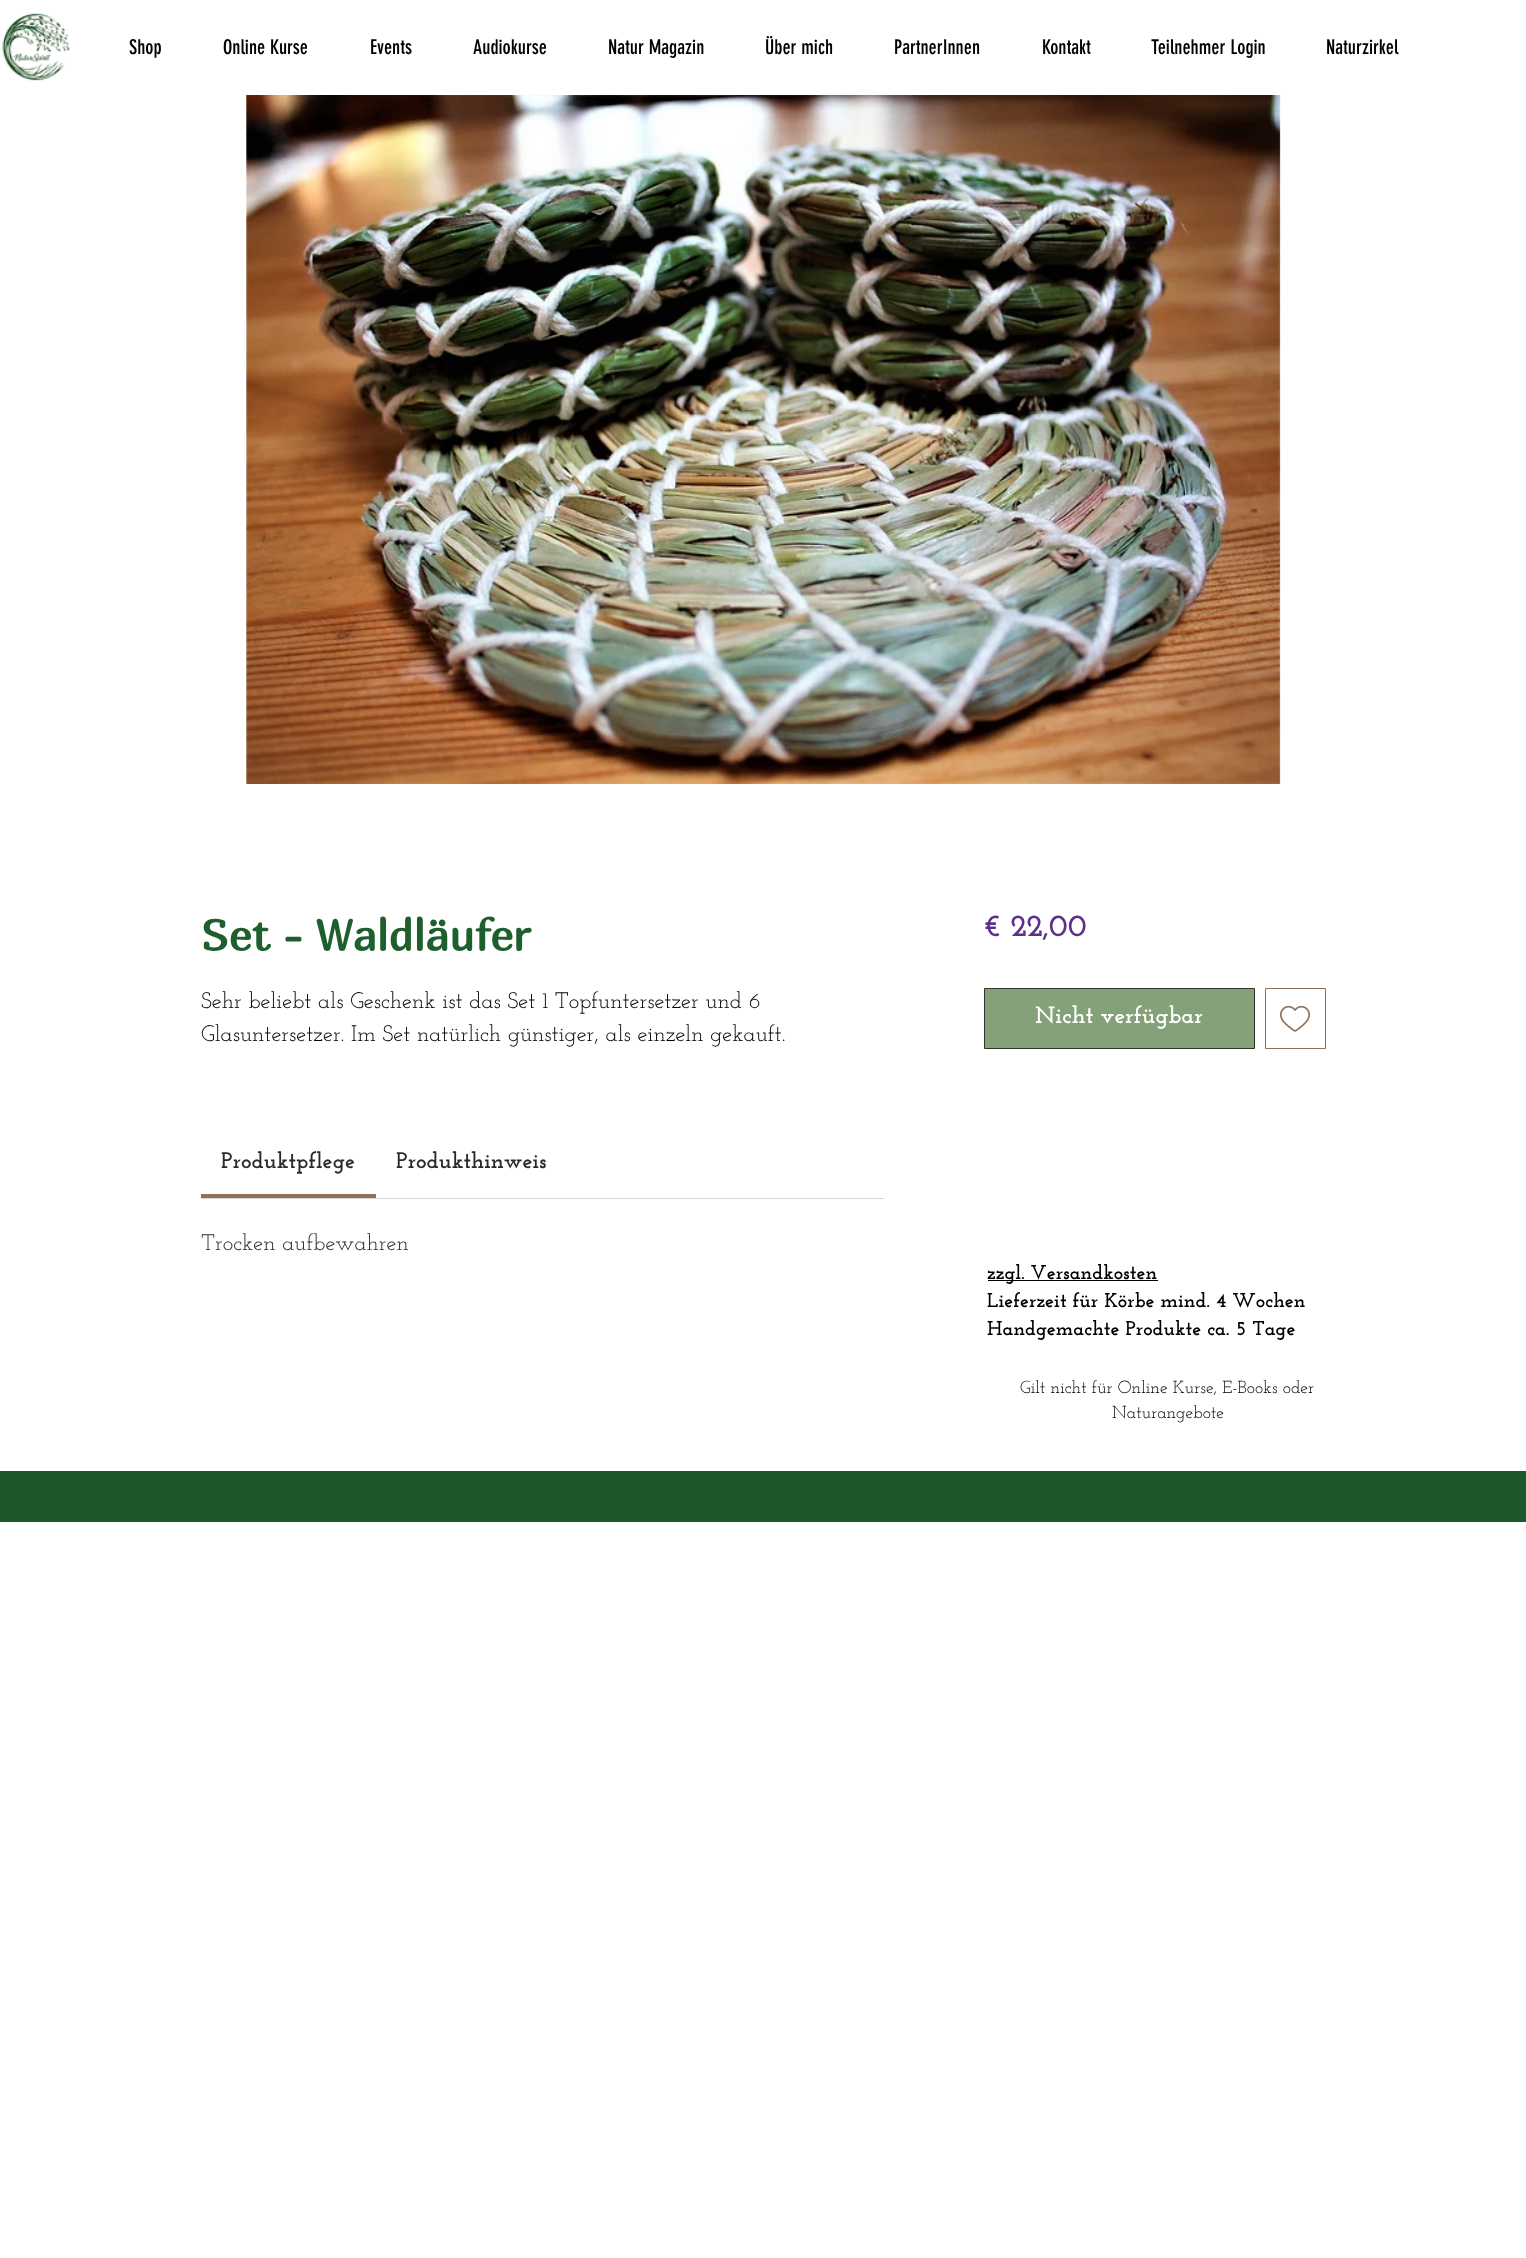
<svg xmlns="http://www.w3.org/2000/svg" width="1526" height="2258">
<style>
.a{font:20px 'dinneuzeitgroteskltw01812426';fill:#000}
.b{font:bold 43.75px Marmelad;fill:#1e5f2e}
.c{font:22.5px Josefin Slab;fill:#000}
.d{font:bold 22.5px Josefin Slab;fill:#2a2a2a}
.e{font:22.5px Josefin Slab;fill:#2a2a2a}
.f{font:bold 31px Josefin Slab;fill:#5d2f8a}
.g{font:bold 23.75px Josefin Slab;fill:#fff}
.h{font:bold 20px Josefin Slab;fill:#000}
.i{font:17.5px Josefin Slab;fill:#000}
</style>
<rect width="100%" height="100%" fill="#fff"/>
<image href="1.png" x="2" y="13" width="68" height="68"/>
<image href="2.png" x="246" y="95" width="1035" height="689"/>
<path fill="#d5d7d4" d="M201 1198h683v1H201z"/>
<path fill="#907057" d="M201 1194h175v4H201z"/>
<path fill="#85a17a" stroke="#2d3629" d="M984.5 988.5h270v60H984.5z"/>
<path fill="none" stroke="#907057" d="M1265.5 988.5h60v60H1265.5z"/>
<image href="3.png" x="1280" y="1005" width="30" height="27"/>
<path fill="#000" d="M988 1280h170v1H988z"/>
<path fill="#1d582b" d="M0 1471h1526v51H0z"/>
<text class="a" x="129" y="54">Shop</text>
<text class="a" x="223" y="54">Online Kurse</text>
<text class="a" x="370" y="54">Events</text>
<text class="a" x="473" y="54">Audiokurse</text>
<text class="a" x="608" y="54">Natur Magazin</text>
<text class="a" x="765" y="54">Über mich</text>
<text class="a" x="894" y="54">PartnerInnen</text>
<text class="a" x="1042" y="54">Kontakt</text>
<text class="a" x="1151" y="54">Teilnehmer Login</text>
<text class="a" x="1326" y="54">Naturzirkel</text>
<text class="b" x="201" y="951">Set - Waldläufer</text>
<text class="c" x="201" y="1008">Sehr beliebt als Geschenk ist das Set 1 Topfuntersetzer und 6</text>
<text class="c" x="201" y="1041">Glasuntersetzer. Im Set natürlich günstiger, als einzeln gekauft.</text>
<text class="d" x="221" y="1168">Produktpflege</text>
<text class="d" x="396" y="1168">Produkthinweis</text>
<text class="e" x="201" y="1250">Trocken aufbewahren</text>
<text class="f" x="984" y="936">€ 22,00</text>
<text class="g" x="1035" y="1023">Nicht verfügbar</text>
<text class="h" x="987" y="1279">zzgl. Versandkosten</text>
<text class="h" x="987" y="1307">Lieferzeit für Körbe mind. 4 Wochen</text>
<text class="h" x="987" y="1335">Handgemachte Produkte ca. 5 Tage</text>
<text class="i" x="1020" y="1393">Gilt nicht für Online Kurse, E-Books oder</text>
<text class="i" x="1112" y="1418">Naturangebote</text>
</svg>
